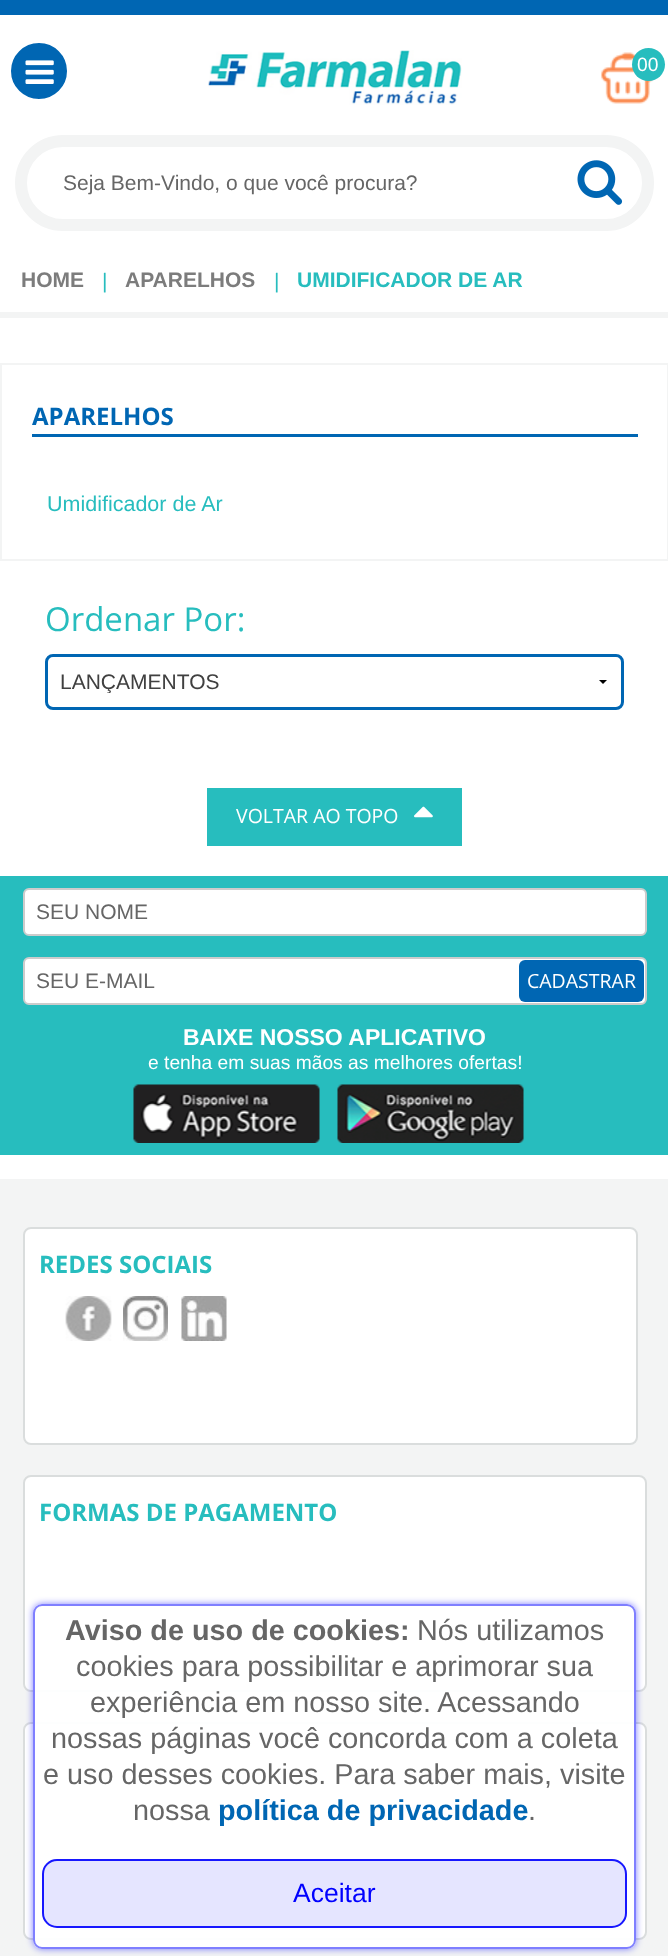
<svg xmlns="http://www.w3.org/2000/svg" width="668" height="1956">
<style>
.a{font:19.25px Liberation Sans;fill:#fff}
.b{font:21px Liberation Sans;fill:#666}
.c{font:bold 21px Liberation Sans;fill:#7c7c7c}
.d{font:21px Liberation Sans;fill:#27bdbe}
.e{font:bold 21px Liberation Sans;fill:#27bdbe}
.f{font:bold 24px Open Sans;fill:#0066b3}
.g{font:21.5px Liberation Sans;fill:#27bdbe}
.h{font:33px Open Sans;fill:#27bdbe}
.i{font:21px Liberation Sans;fill:#404040}
.j{font:19.5px Open Sans;fill:#fff}
.k{font:bold 23px Liberation Sans;fill:#fff}
.l{font:bold 24px Open Sans;fill:#27bdbe}
.m{font:bold 28.8px Liberation Sans;fill:#666}
.n{font:28.8px Liberation Sans;fill:#666}
.o{font:bold 28.8px Liberation Sans;fill:#0066b3}
.p{font:26.5px Liberation Sans;fill:#00f}
</style>
<defs>
<clipPath id="clip1"><path d="M585 680h36v5H585z"/></clipPath>
<clipPath id="clip2"><path d="M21 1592h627v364h-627zm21 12h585c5 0 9 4 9 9v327c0 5-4 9-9 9h-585c-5 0-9-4-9-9v-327c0-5 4-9 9-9z" clip-rule="evenodd"/></clipPath>
<clipPath id="clip3"><path d="M60 669h549v24H60z"/></clipPath>
</defs>
<rect width="100%" height="100%" fill="#fff"/>
<path fill="#0066b3" d="M0 0h668v15H0z"/>
<circle fill="#0066b3" stroke="#fff" stroke-width="5" cx="39" cy="71" r="30.5"/>
<image href="1.png" x="25" y="60" width="29" height="24"/>
<image href="2.png" x="208" y="50" width="254" height="55"/>
<image href="3.png" x="601" y="52" width="52" height="52"/>
<circle fill="#27bdbe" cx="648.5" cy="64.5" r="16.5"/>
<rect fill="none" stroke="#f3f4f4" stroke-width="12" x="21" y="141" width="627" height="84" rx="42"/>
<image href="4.png" x="577" y="160" width="46" height="45"/>
<path fill="#f3f4f4" d="M0 312h668v6H0z"/>
<path fill="none" stroke="#f3f4f4" stroke-width="2" d="M1 364h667v196H1z"/>
<path fill="#0066b3" d="M32 434h606v3H32z"/>
<g clip-path="url(#clip1)">
<path fill="#000" d="M607.5 679.5l-4.5 4.5l-4.5-4.5z"/>
</g>
<rect fill="none" stroke="#0066b3" stroke-width="3" x="46.5" y="655.5" width="576" height="53" rx="6.5"/>
<path fill="#27bdbe" d="M207 788h255v58H207z"/>
<image href="5.png" x="414" y="806" width="19" height="12"/>
<path fill="#27bdbe" d="M0 876h668v279H0z"/>
<rect fill="#fff" stroke="#ccc" stroke-width="2" x="24" y="889" width="622" height="46" rx="5"/>
<rect fill="#fff" stroke="#ccc" stroke-width="2" x="24" y="958" width="622" height="46" rx="5"/>
<rect fill="#0066b3" x="519" y="960" width="125" height="42" rx="6"/>
<image href="6.png" x="133" y="1084" width="187" height="59"/>
<image href="7.png" x="337" y="1084" width="187" height="59"/>
<path fill="#f3f4f4" d="M0 1179h668v777H0z"/>
<rect fill="#fff" stroke="#dadddd" stroke-width="2" x="24" y="1228" width="613" height="216" rx="7"/>
<image href="8.png" x="65" y="1296" width="47" height="45"/>
<image href="9.png" x="123" y="1296" width="45" height="45"/>
<image href="10.png" x="181" y="1296" width="46" height="45"/>
<rect fill="#fff" stroke="#dadddd" stroke-width="2" x="24" y="1476" width="622" height="215" rx="7"/>
<rect fill="#fff" stroke="#dadddd" stroke-width="2" x="24" y="1723" width="622" height="216" rx="7"/>
<g clip-path="url(#clip2)">
<rect fill="#0000ff80" filter="blur(3.5px)" x="33" y="1604" width="603" height="345" rx="9"/>
</g>
<rect fill="#fffffff2" x="33" y="1604" width="603" height="345" rx="9"/>
<rect fill="none" stroke="#0000ff80" stroke-width="2" x="34" y="1605" width="601" height="343" rx="8"/>
<rect fill="#0000ff1a" x="42" y="1859" width="585" height="69" rx="15"/>
<rect fill="none" stroke="#0000ffe6" stroke-width="2" x="43" y="1860" width="583" height="67" rx="14"/>
<text class="a" x="637" y="71">00</text>
<text class="b" x="63" y="190">Seja Bem-Vindo, o que você procura?</text>
<text class="c" x="21" y="287">HOME</text>
<text class="d" x="102" y="288">|</text>
<text class="c" x="125" y="287">APARELHOS</text>
<text class="d" x="274" y="288">|</text>
<text class="e" x="297" y="287">UMIDIFICADOR DE AR</text>
<text class="f" x="32" y="425">APARELHOS</text>
<text class="g" x="47" y="511">Umidificador de Ar</text>
<text class="h" x="45" y="631">Ordenar Por:</text>
<g clip-path="url(#clip3)">
<text class="i" x="60" y="689">LANÇAMENTOS</text>
</g>
<text class="j" x="236" y="823">VOLTAR AO TOPO</text>
<text class="b" x="36" y="919">SEU NOME</text>
<text class="b" x="36" y="988">SEU E-MAIL</text>
<text class="j" x="527" y="988">CADASTRAR</text>
<text class="k" x="183" y="1045">BAIXE NOSSO APLICATIVO</text>
<text class="a" x="148" y="1069">e tenha em suas mãos as melhores ofertas!</text>
<text class="l" x="39" y="1273">REDES SOCIAIS</text>
<text class="l" x="39" y="1521">FORMAS DE PAGAMENTO</text>
<text class="m" x="65" y="1640">Aviso de uso de cookies:</text>
<text class="n" x="417" y="1640">Nós utilizamos</text>
<text class="n" x="76" y="1676">cookies para possibilitar e aprimorar sua</text>
<text class="n" x="90" y="1712">experiência em nosso site. Acessando</text>
<text class="n" x="51" y="1748">nossas páginas você concorda com a coleta</text>
<text class="n" x="43" y="1784">e uso desses cookies. Para saber mais, visite</text>
<text class="n" x="133" y="1820">nossa</text>
<text class="o" x="218" y="1820">política de privacidade</text>
<text class="n" x="528" y="1820">.</text>
<text class="p" x="293" y="1902">Aceitar</text>
</svg>
